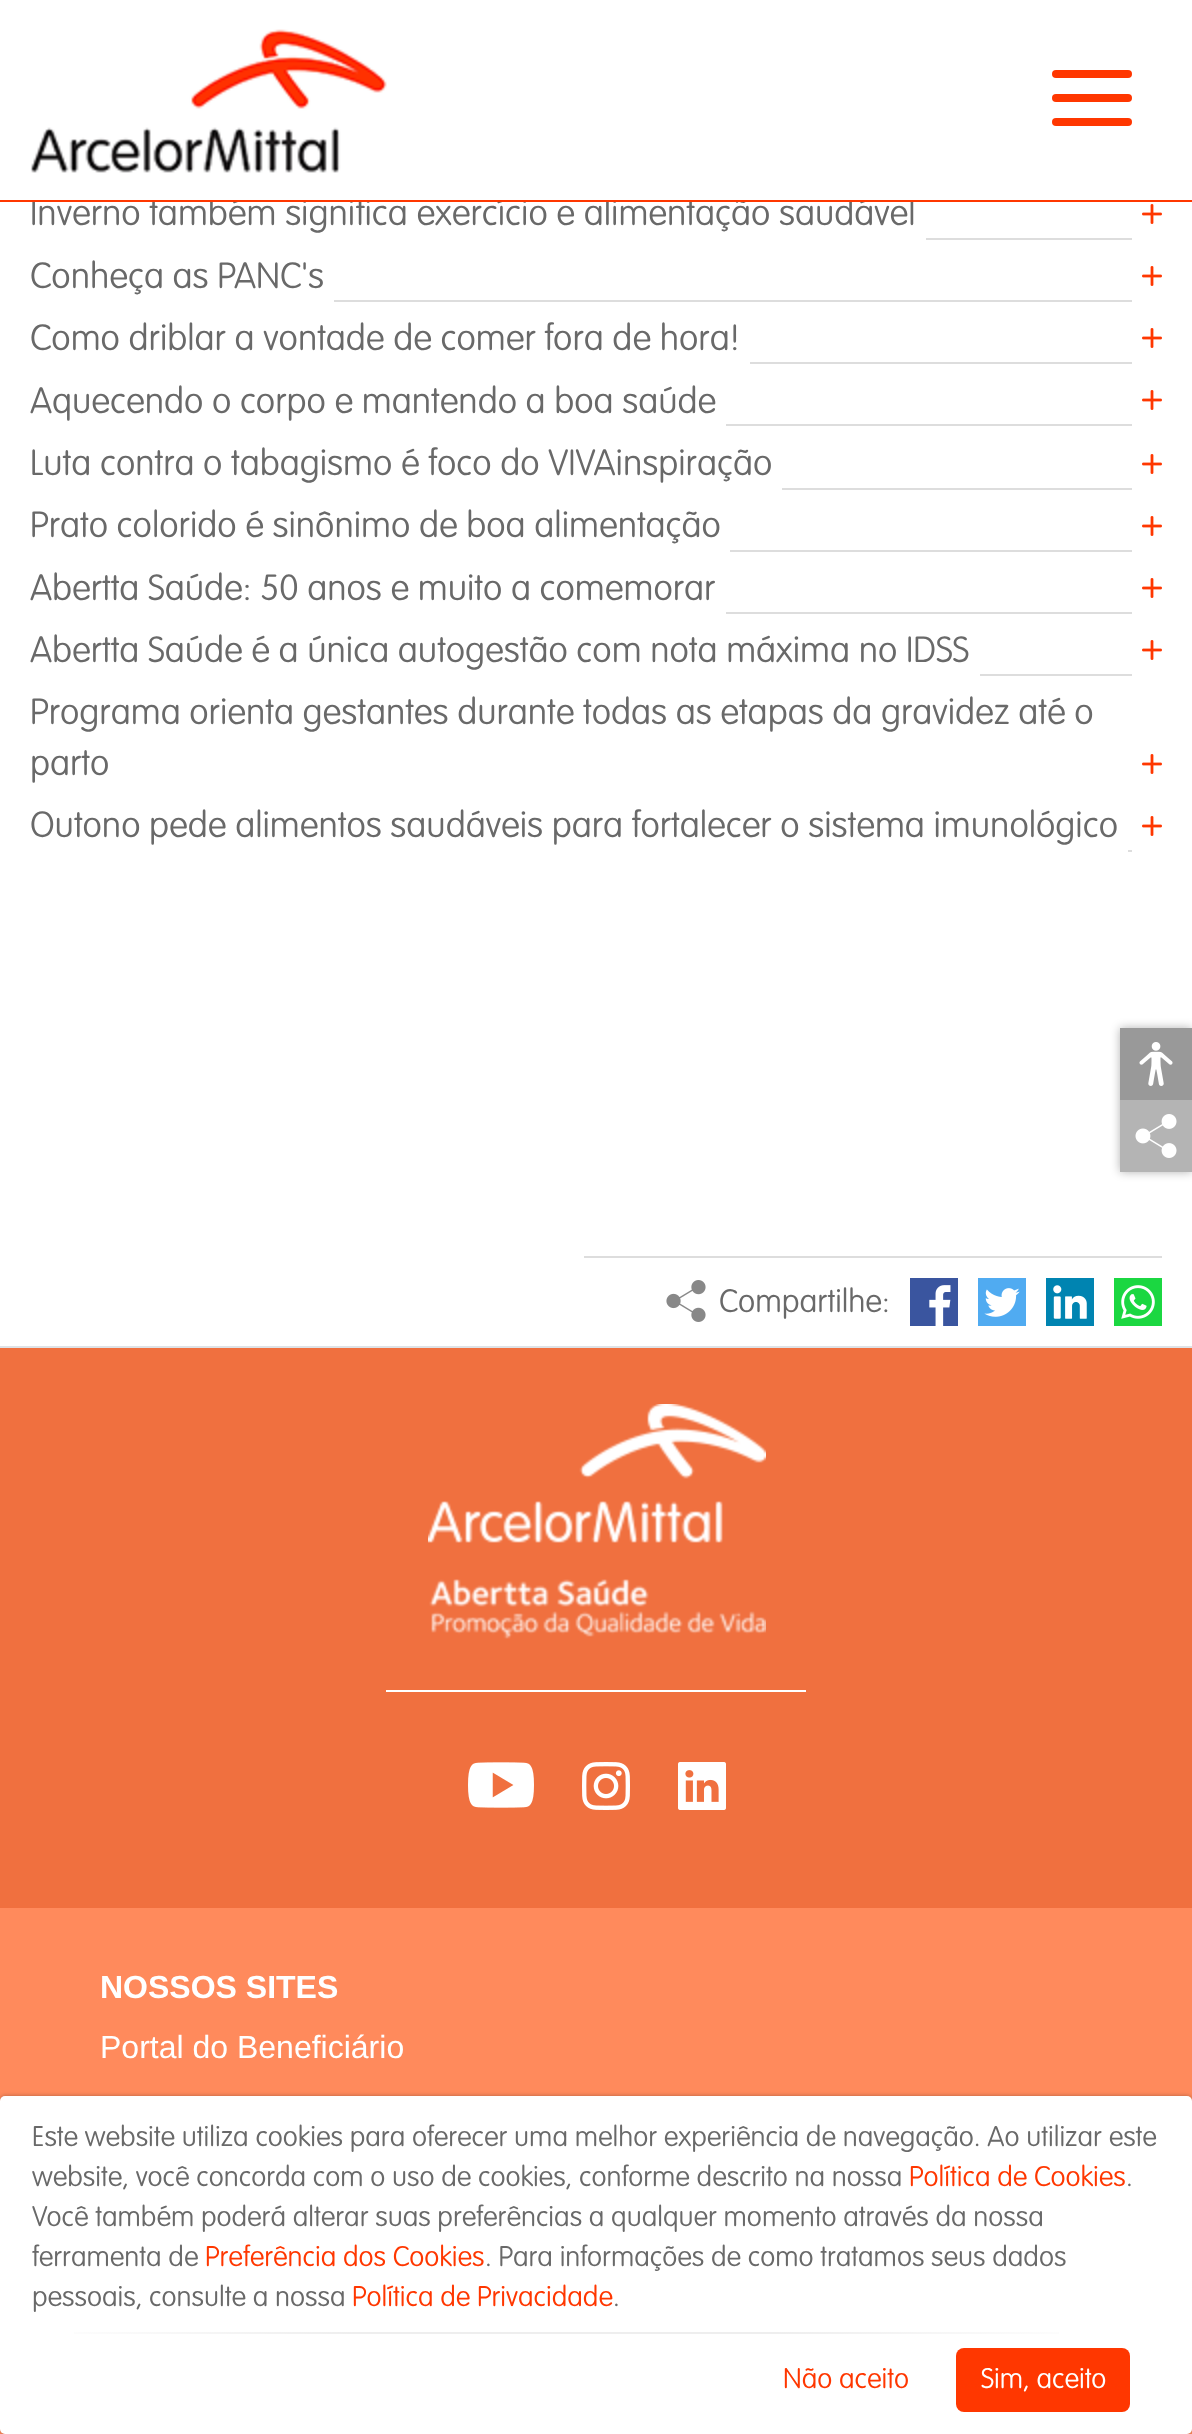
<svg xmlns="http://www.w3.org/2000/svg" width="1192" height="2434">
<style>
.a{font:100 36px 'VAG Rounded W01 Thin';fill:#696969}
.b{font:100 32px 'VAG Rounded W01 Thin';fill:#696969}
.c{font:bold 32px Liberation Sans;fill:#fff}
.d{font:32px Liberation Sans;fill:#fff}
.e{font:100 28px 'VAG Rounded W01 Thin';fill:#696969}
.f{font:100 28px 'VAG Rounded W01 Thin';fill:#ff3700}
.g{font:100 28px 'VAG Rounded W01 Thin';fill:#fff}
</style>
<defs>
<radialGradient id="g1" gradientUnits="userSpaceOnUse" cx="566" cy="2333" r="604"><stop offset="0.35" stop-color="#eee"/><stop offset="0.9" stop-color="#fff"/></radialGradient>
</defs>
<rect width="100%" height="100%" fill="#fff"/>
<image href="1.png" x="30" y="29" width="357" height="144"/>
<rect fill="#ff3700" x="1052" y="70" width="80" height="8" rx="4"/>
<rect fill="#ff3700" x="1052" y="94" width="80" height="8" rx="4"/>
<rect fill="#ff3700" x="1052" y="118" width="80" height="8" rx="4"/>
<path fill="#ddd" d="M926 238h206v2H926z"/>
<image href="2.png" x="1142" y="204" width="20" height="20"/>
<path fill="#ddd" d="M334 300h798v2H334z"/>
<image href="2.png" x="1142" y="266" width="20" height="20"/>
<path fill="#ddd" d="M750 362h382v2H750z"/>
<image href="2.png" x="1142" y="328" width="20" height="20"/>
<path fill="#ddd" d="M726 424h406v2H726z"/>
<image href="2.png" x="1142" y="390" width="20" height="20"/>
<path fill="#ddd" d="M782 488h350v2H782z"/>
<image href="2.png" x="1142" y="454" width="20" height="20"/>
<path fill="#ddd" d="M730 550h402v2H730z"/>
<image href="2.png" x="1142" y="516" width="20" height="20"/>
<path fill="#ddd" d="M726 612h406v2H726z"/>
<image href="2.png" x="1142" y="578" width="20" height="20"/>
<path fill="#ddd" d="M980 674h152v2H980z"/>
<image href="2.png" x="1142" y="640" width="20" height="20"/>
<image href="2.png" x="1142" y="754" width="20" height="20"/>
<path fill="#ddd" d="M1128 850h4v2H1128z"/>
<image href="2.png" x="1142" y="816" width="20" height="20"/>
<path fill="#0000004d" filter="blur(5px)" d="M1120 1028h72v144H1120z"/>
<path fill="#999" d="M1120 1028h72v72H1120z"/>
<image href="3.png" x="1139" y="1042" width="34" height="44"/>
<path fill="#b4b4b4" d="M1120 1100h72v72H1120z"/>
<image href="4.png" x="1135" y="1114" width="42" height="44"/>
<path fill="#ddd" d="M584 1256h578v2H584z"/>
<image href="5.png" x="666" y="1280" width="40" height="42"/>
<image href="6.png" x="910" y="1278" width="48" height="48"/>
<image href="7.png" x="978" y="1278" width="48" height="48"/>
<image href="8.png" x="1046" y="1278" width="48" height="48"/>
<image href="9.png" x="1114" y="1278" width="48" height="48"/>
<path fill="#dee2e6" d="M0 1346h1192v2H0z"/>
<path fill="#ff8a5c" d="M0 1908h1192v526H0z"/>
<path fill="#f0703f" d="M0 1348h1192v560H0z"/>
<image href="10.png" x="428" y="1404" width="338" height="235"/>
<path fill="#fff" d="M386 1690h420v2H386z"/>
<image href="11.png" x="468" y="1762" width="66" height="46"/>
<image href="12.png" x="582" y="1762" width="48" height="48"/>
<image href="13.png" x="678" y="1762" width="48" height="48"/>
<rect fill="#0000004d" filter="blur(2px)" y="2096" width="1192" height="338" rx="5"/>
<rect fill="#fff" y="2096" width="1192" height="338" rx="5"/>
<path fill="url(#g1)" d="M74 2332h985v2H74z"/>
<rect fill="#ff3700" x="956" y="2348" width="174" height="64" rx="8"/>
<text class="a" x="30" y="225">Inverno também significa exercício e alimentação saudável</text>
<path fill="#ff3700" d="M0 200h1192v2H0z"/>
<path fill="#fff" d="M32 197h882v3H32z"/>
<text class="a" x="30" y="288">Conheça as PANC's</text>
<text class="a" x="30" y="350">Como driblar a vontade de comer fora de hora!</text>
<text class="a" x="30" y="413">Aquecendo o corpo e mantendo a boa saúde</text>
<text class="a" x="30" y="475">Luta contra o tabagismo é foco do VIVAinspiração</text>
<text class="a" x="30" y="537">Prato colorido é sinônimo de boa alimentação</text>
<text class="a" x="30" y="600">Abertta Saúde: 50 anos e muito a comemorar</text>
<text class="a" x="30" y="662">Abertta Saúde é a única autogestão com nota máxima no IDSS</text>
<text class="a" x="30" y="724">Programa orienta gestantes durante todas as etapas da gravidez até o</text>
<text class="a" x="30" y="775">parto</text>
<text class="a" x="30" y="837">Outono pede alimentos saudáveis para fortalecer o sistema imunológico</text>
<text class="b" x="719" y="1312">Compartilhe:</text>
<text class="c" x="100" y="1998">NOSSOS SITES</text>
<text class="d" x="100" y="2058">Portal do Beneficiário</text>
<text class="e" x="32" y="2146">Este website utiliza cookies para oferecer uma melhor experiência de navegação. Ao utilizar este</text>
<text class="e" x="32" y="2186">website, você concorda com o uso de cookies, conforme descrito na nossa</text>
<text class="f" x="909" y="2186">Política de Cookies</text>
<text class="e" x="1126" y="2186">.</text>
<text class="e" x="32" y="2226">Você também poderá alterar suas preferências a qualquer momento através da nossa</text>
<text class="e" x="32" y="2266">ferramenta de</text>
<text class="f" x="205" y="2266">Preferência dos Cookies</text>
<text class="e" x="485" y="2266">. Para informações de como tratamos seus dados</text>
<text class="e" x="32" y="2306">pessoais, consulte a nossa</text>
<text class="f" x="352" y="2306">Política de Privacidade</text>
<text class="e" x="613" y="2306">.</text>
<text class="f" x="783" y="2388">Não aceito</text>
<text class="g" x="981" y="2388">Sim, aceito</text>
</svg>
